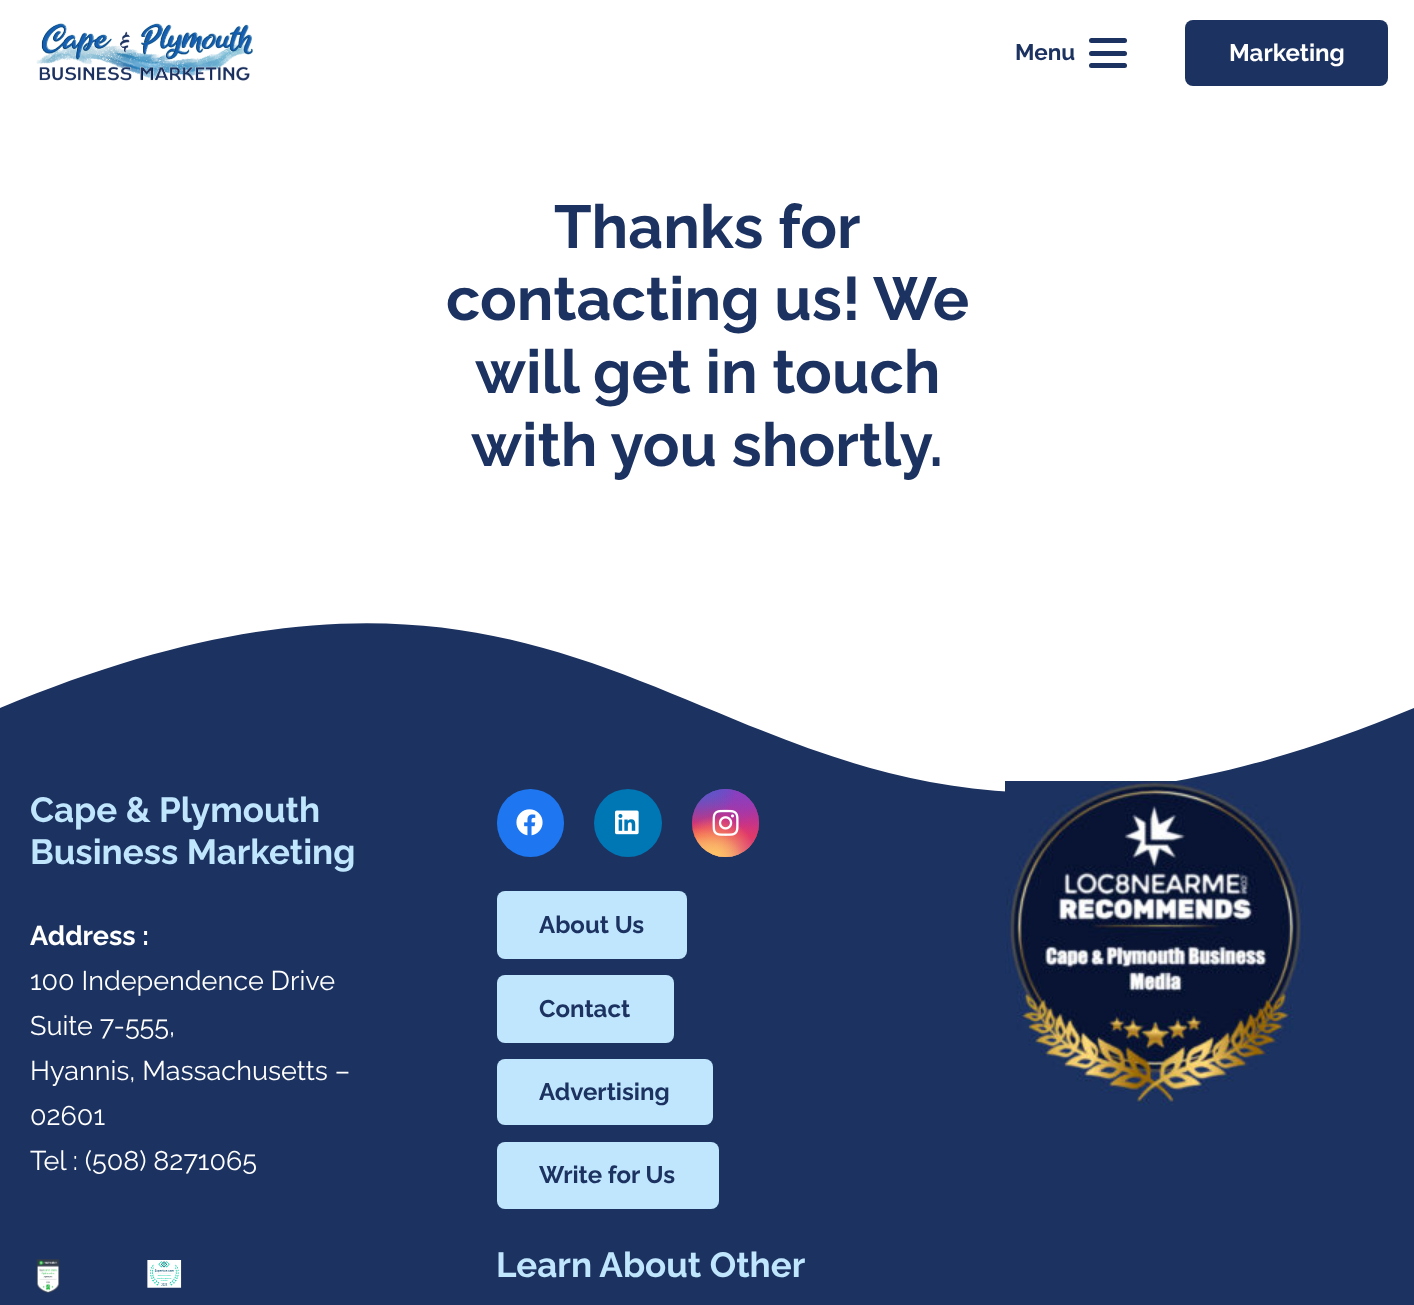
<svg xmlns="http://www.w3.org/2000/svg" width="1414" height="1305">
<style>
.a{font:bold 22.5px Raleway;fill:#1c3260}
.b{font:bold 24px Raleway;fill:#fff}
.c{font:bold 60.75px Raleway;fill:#1c3260}
.d{font:bold 35px Raleway;fill:#c0e6fd}
.e{font:bold 27px Raleway;fill:#fff}
.f{font:27px Raleway;fill:#fff}
.g{font:bold 24px Raleway;fill:#1c3260}
</style>
<defs>
<linearGradient id="g1" gradientUnits="userSpaceOnUse" x1="725" y1="789" x2="725" y2="857"><stop offset="0" stop-color="#6559ca"/><stop offset="0.3" stop-color="#bc318f"/><stop offset="0.5" stop-color="#e42e66"/><stop offset="0.7" stop-color="#fa5332"/><stop offset="1" stop-color="#ffdc80"/></linearGradient>
<radialGradient id="g2" gradientUnits="userSpaceOnUse" cx="759" cy="857" r="95"><stop offset="0" stop-color="#d9317a"/><stop offset="1" stop-color="#d9317a" stop-opacity="0"/></radialGradient>
<radialGradient id="g3" gradientUnits="userSpaceOnUse" cx="0" cy="0" r="1" gradientTransform="matrix(57 0 0 115 732 776)"><stop offset="0" stop-color="#893dc2"/><stop offset="0.5" stop-color="#893dc2" stop-opacity="0"/></radialGradient>
<radialGradient id="g4" gradientUnits="userSpaceOnUse" cx="759" cy="789" r="95"><stop offset="0" stop-color="#893dc2"/><stop offset="0.5" stop-color="#893dc2" stop-opacity="0"/></radialGradient>
<radialGradient id="g5" gradientUnits="userSpaceOnUse" cx="0" cy="0" r="1" gradientTransform="matrix(76 0 0 143 705 755)"><stop offset="0" stop-color="#5258cf"/><stop offset="0.5" stop-color="#5258cf" stop-opacity="0"/></radialGradient>
<radialGradient id="g6" gradientUnits="userSpaceOnUse" cx="0" cy="0" r="1" gradientTransform="matrix(95 0 0 119 692 772)"><stop offset="0" stop-color="#5258cf"/><stop offset="0.5" stop-color="#5258cf" stop-opacity="0"/></radialGradient>
<radialGradient id="g7" gradientUnits="userSpaceOnUse" cx="698" cy="884" r="112"><stop offset="0" stop-color="#feda7e"/><stop offset="0.5" stop-color="#feda7e" stop-opacity="0"/></radialGradient>
<radialGradient id="g8" gradientUnits="userSpaceOnUse" cx="715" cy="857" r="81"><stop offset="0" stop-color="#fec564"/><stop offset="0.5" stop-color="#fec564" stop-opacity="0"/></radialGradient>
</defs>
<rect width="100%" height="100%" fill="#fff"/>
<image href="1.png" x="36" y="23" width="218" height="58"/>
<rect fill="#1c3260" x="1089" y="51" width="38" height="5" rx="2.5"/>
<rect fill="#1c3260" x="1089" y="38" width="38" height="5" rx="2.5"/>
<rect fill="#1c3260" x="1089" y="63" width="38" height="5" rx="2.5"/>
<rect fill="#1c3260" x="1185" y="20" width="203" height="66" rx="8"/>
<path fill="#1c3260" d="M0 623h1414v682H0z"/>
<path fill="#fff" d="M1414 708c-707 294-707-294-1414 0v-98h1414z"/>
<image href="2.png" x="36" y="1259" width="24" height="34"/>
<image href="3.png" x="147" y="1260" width="35" height="28"/>
<rect fill="#1e77f0" x="497" y="789" width="67" height="68" rx="33.5"/>
<image href="4.png" x="516" y="809" width="27" height="27"/>
<circle fill="#0077b5" cx="628" cy="823" r="34"/>
<image href="5.png" x="615" y="810" width="24" height="25"/>
<rect fill="url(#g1)" x="692" y="789" width="67" height="68" rx="33.5"/>
<rect fill="url(#g2)" x="692" y="789" width="67" height="68" rx="33.5"/>
<rect fill="url(#g3)" x="692" y="789" width="67" height="68" rx="33.5"/>
<rect fill="url(#g4)" x="692" y="789" width="67" height="68" rx="33.5"/>
<rect fill="url(#g5)" x="692" y="789" width="67" height="68" rx="33.5"/>
<rect fill="url(#g6)" x="692" y="789" width="67" height="68" rx="33.5"/>
<rect fill="url(#g7)" x="692" y="789" width="67" height="68" rx="33.5"/>
<rect fill="url(#g8)" x="692" y="789" width="67" height="68" rx="33.5"/>
<image href="6.png" x="712" y="809" width="27" height="27"/>
<rect fill="#c0e6fd" x="497" y="891" width="190" height="68" rx="8"/>
<rect fill="#c0e6fd" x="497" y="975" width="177" height="68" rx="8"/>
<rect fill="#c0e6fd" x="497" y="1059" width="216" height="66" rx="8"/>
<rect fill="#c0e6fd" x="497" y="1142" width="222" height="67" rx="8"/>
<image href="7.png" x="1005" y="781" width="300" height="324"/>
<text class="a" x="1015" y="60">Menu</text>
<text class="b" x="1229" y="61">Marketing</text>
<text class="c" x="554" y="248">Thanks for</text>
<text class="c" x="446" y="320">contacting us! We</text>
<text class="c" x="475" y="393">will get in touch</text>
<text class="c" x="471" y="466">with you shortly.</text>
<text class="d" x="30" y="822">Cape &amp; Plymouth</text>
<text class="d" x="30" y="864">Business Marketing</text>
<text class="e" x="30" y="945">Address :</text>
<text class="f" x="30" y="990">100 Independence Drive</text>
<text class="f" x="30" y="1035">Suite 7-555,</text>
<text class="f" x="30" y="1080">Hyannis, Massachusetts –</text>
<text class="f" x="30" y="1125">02601</text>
<text class="f" x="30" y="1170">Tel : (508) 8271065</text>
<text class="g" x="539" y="933">About Us</text>
<text class="g" x="539" y="1017">Contact</text>
<text class="g" x="539" y="1100">Advertising</text>
<text class="g" x="539" y="1183">Write for Us</text>
<text class="d" x="496" y="1277">Learn About Other</text>
</svg>
